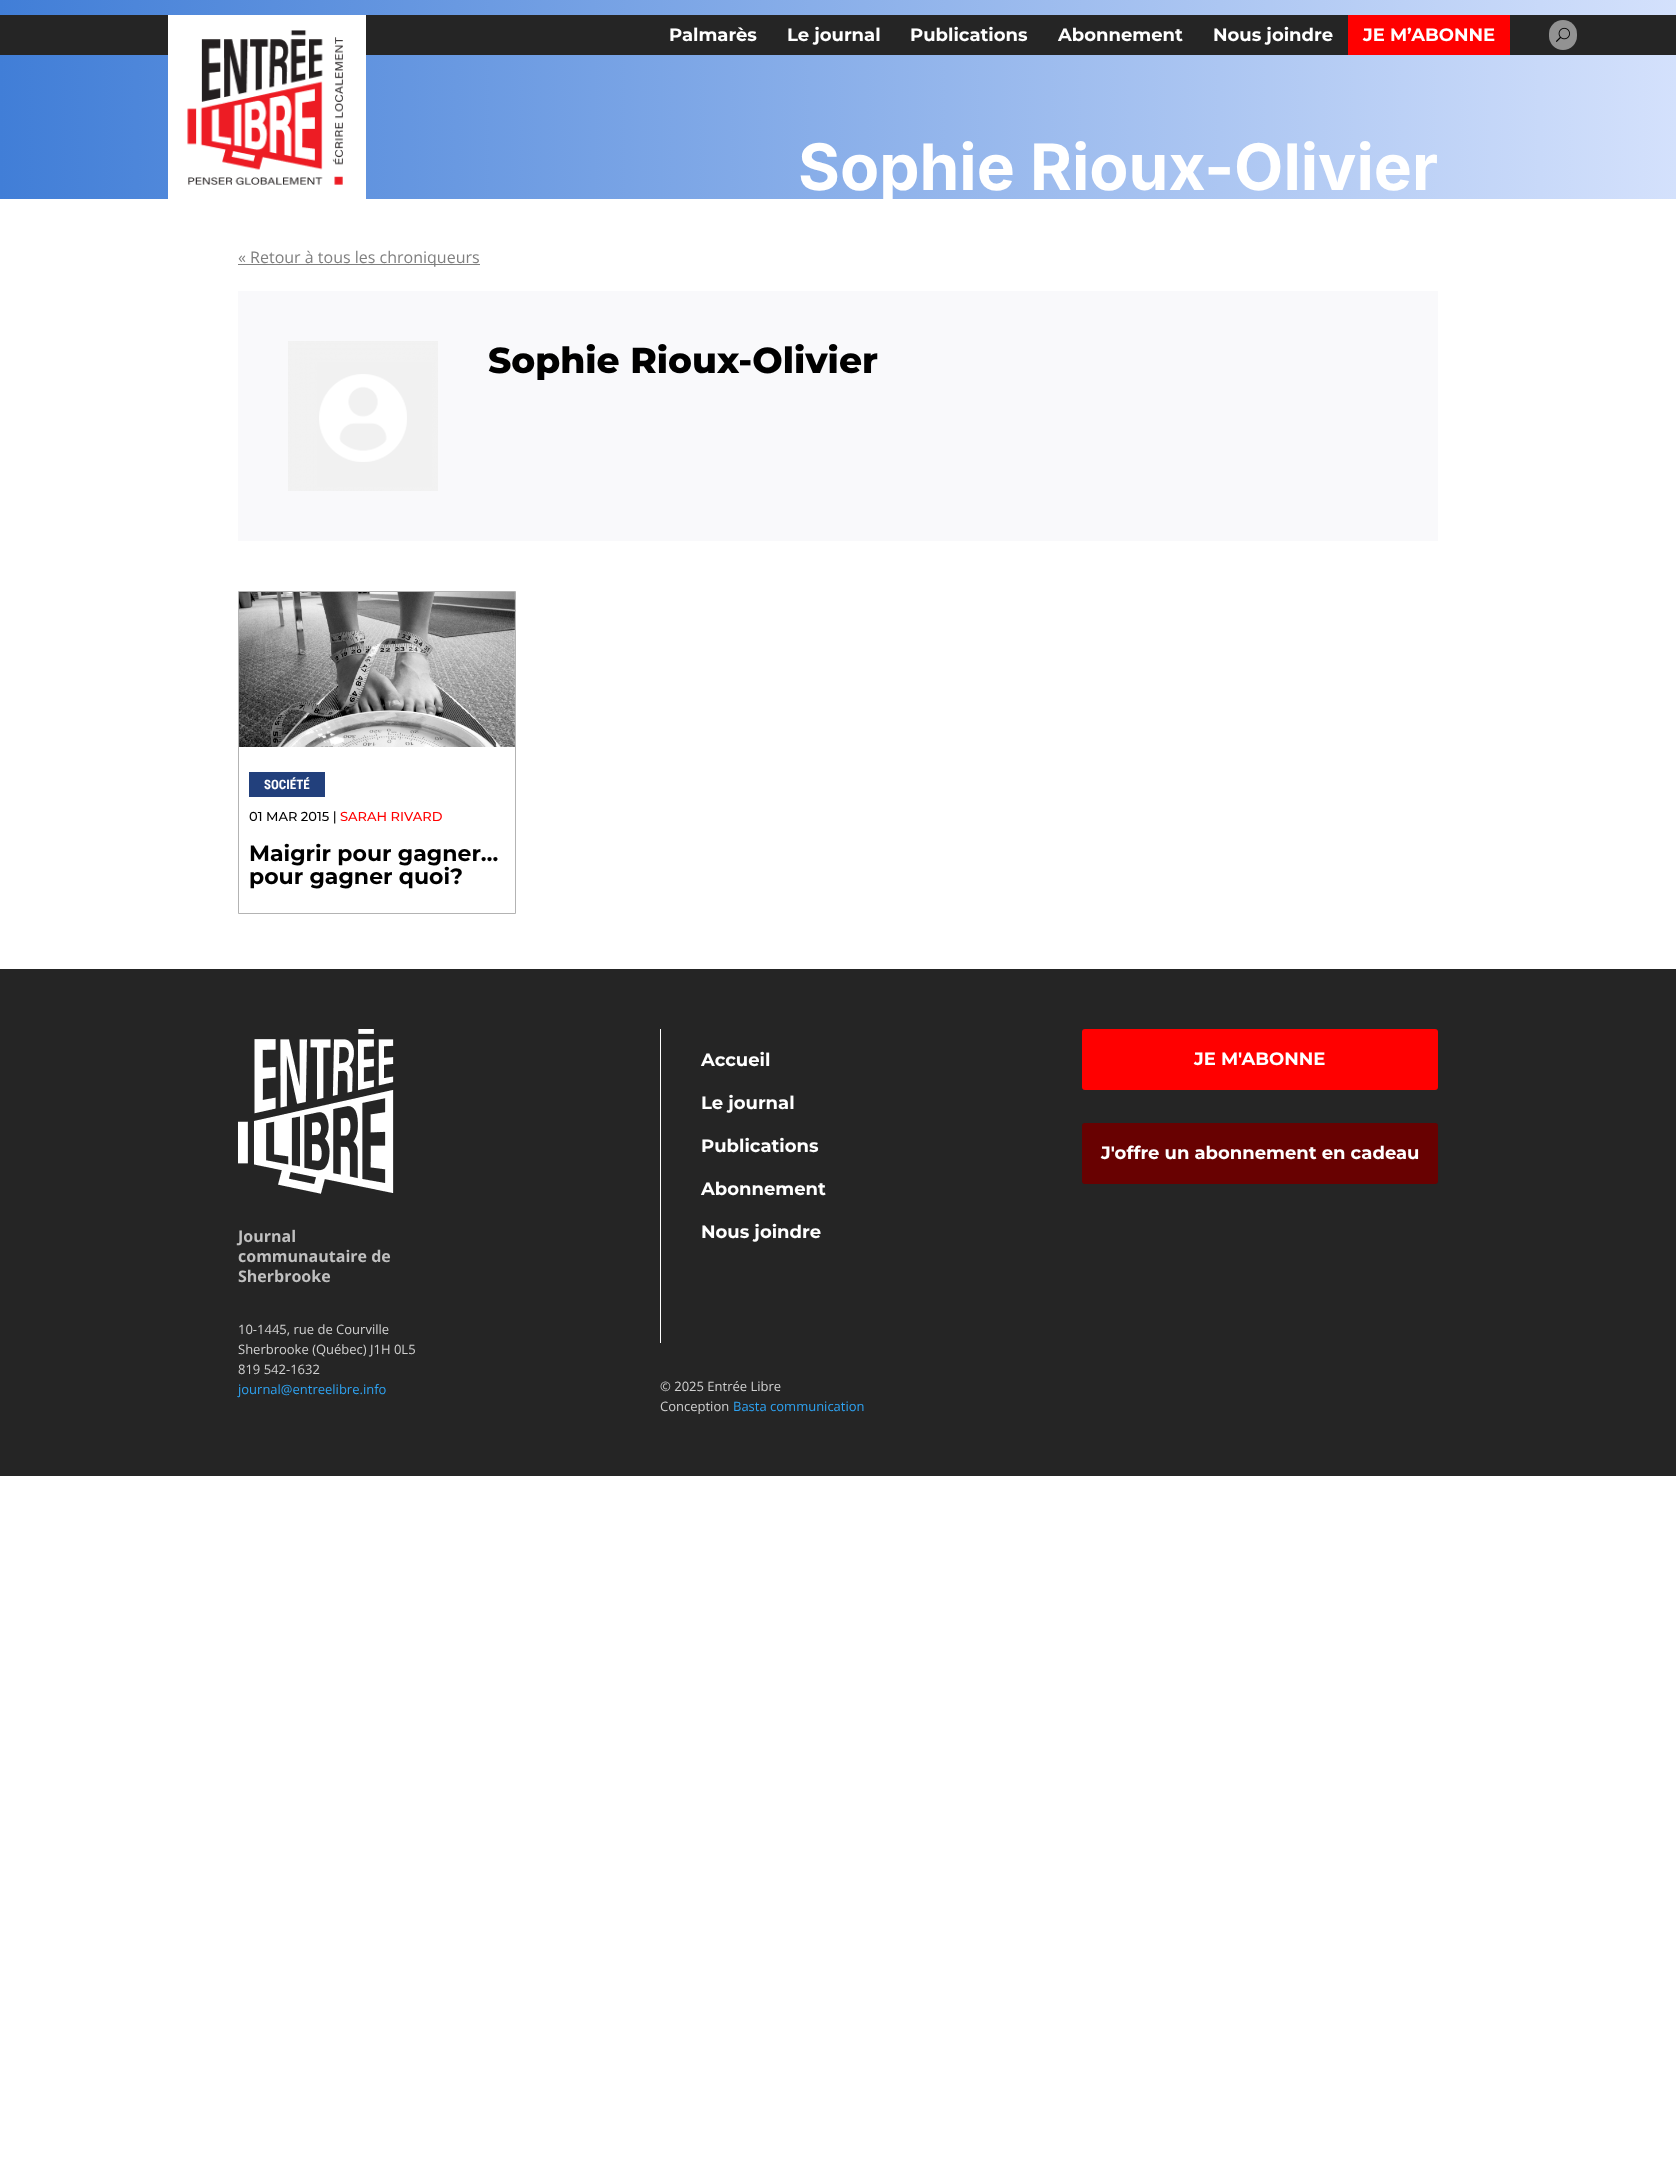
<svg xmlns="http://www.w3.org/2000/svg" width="1676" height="2174">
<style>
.a{font:bold 18px Montserrat;fill:#fff}
.b{font:bold 64px Inter;fill:#fff}
.c{font:16px Open Sans;fill:#7f7f7f}
.d{font:800 36px Montserrat;fill:#000}
.e{font:bold 13px Roboto Condensed;fill:#fff}
.f{font:500 13px Montserrat;fill:#000}
.g{font:500 13px Montserrat;fill:#f00}
.h{font:bold 22px Montserrat;fill:#000}
.i{font:13px Open Sans;fill:#d0d0d0}
.j{font:13px Open Sans;fill:#2ea3f2}
.k{font:bold 16px Open Sans;fill:#c0c0c0}
</style>
<defs>
<linearGradient id="g1" gradientUnits="userSpaceOnUse" x1="0" y1="100" x2="1676" y2="99"><stop offset="0" stop-color="#417ed7"/><stop offset="1" stop-color="#d4e1fc"/></linearGradient>
</defs>
<rect width="100%" height="100%" fill="#fff"/>
<path fill="url(#g1)" d="M0 0h1676v199H0z"/>
<path fill="#252525" d="M0 15h1676v40H0z"/>
<image href="1.png" x="168" y="15" width="198" height="184"/>
<path fill="#f00" d="M1348 15h162v40H1348z"/>
<rect fill="#929292" x="1549" y="20" width="28" height="30" rx="14"/>
<image href="2.png" x="1556" y="27" width="14" height="15"/>
<path fill="#808080" d="M238 264h242v1H238z"/>
<path fill="#f9f9fb" d="M238 291h1200v250H238z"/>
<image href="3.png" x="288" y="341" width="150" height="150"/>
<path fill="none" stroke="#b3b3b3" d="M238.5 591.5h277v322H238.5z"/>
<image href="4.png" x="239" y="592" width="276" height="155"/>
<path fill="#22407c" d="M249 772h76v25H249z"/>
<path fill="#252525" d="M0 969h1676v507H0z"/>
<path fill="#fff" d="M660 1029h1v314H660z"/>
<rect fill="#f00" x="1082" y="1029" width="356" height="61" rx="3"/>
<rect fill="#680101" x="1082" y="1123" width="356" height="61" rx="3"/>
<image href="5.png" x="238" y="1029" width="156" height="165"/>
<text class="a" x="669" y="41">Palmarès</text>
<text class="a" x="787" y="41">Le journal</text>
<text class="a" x="910" y="41">Publications</text>
<text class="a" x="1058" y="41">Abonnement</text>
<text class="a" x="1213" y="41">Nous joindre</text>
<text class="a" x="1363" y="41">JE M’ABONNE</text>
<text class="b" x="798" y="190">Sophie Rioux-Olivier</text>
<text class="c" x="238" y="263">« Retour à tous les chroniqueurs</text>
<text class="d" x="488" y="373">Sophie Rioux-Olivier</text>
<text class="e" x="264" y="789">SOCIÉTÉ</text>
<text class="f" x="249" y="821">01 MAR 2015 |</text>
<text class="g" x="340" y="821">SARAH RIVARD</text>
<text class="h" x="249" y="861">Maigrir pour gagner…</text>
<text class="h" x="249" y="884">pour gagner quoi?</text>
<text class="a" x="701" y="1066">Accueil</text>
<text class="a" x="701" y="1109">Le journal</text>
<text class="a" x="701" y="1152">Publications</text>
<text class="a" x="701" y="1195">Abonnement</text>
<text class="a" x="701" y="1238">Nous joindre</text>
<text class="i" x="660" y="1391">© 2025 Entrée Libre</text>
<text class="i" x="660" y="1411">Conception</text>
<text class="j" x="733" y="1411">Basta communication</text>
<text class="a" x="1194" y="1065">JE M'ABONNE</text>
<text class="a" x="1101" y="1159">J'offre un abonnement en cadeau</text>
<text class="k" x="238" y="1242">Journal</text>
<text class="k" x="238" y="1262">communautaire de</text>
<text class="k" x="238" y="1282">Sherbrooke</text>
<text class="i" x="238" y="1334">10-1445, rue de Courville</text>
<text class="i" x="238" y="1354">Sherbrooke (Québec) J1H 0L5</text>
<text class="i" x="238" y="1374">819 542-1632</text>
<text class="j" x="238" y="1394">journal@entreelibre.info</text>
</svg>
